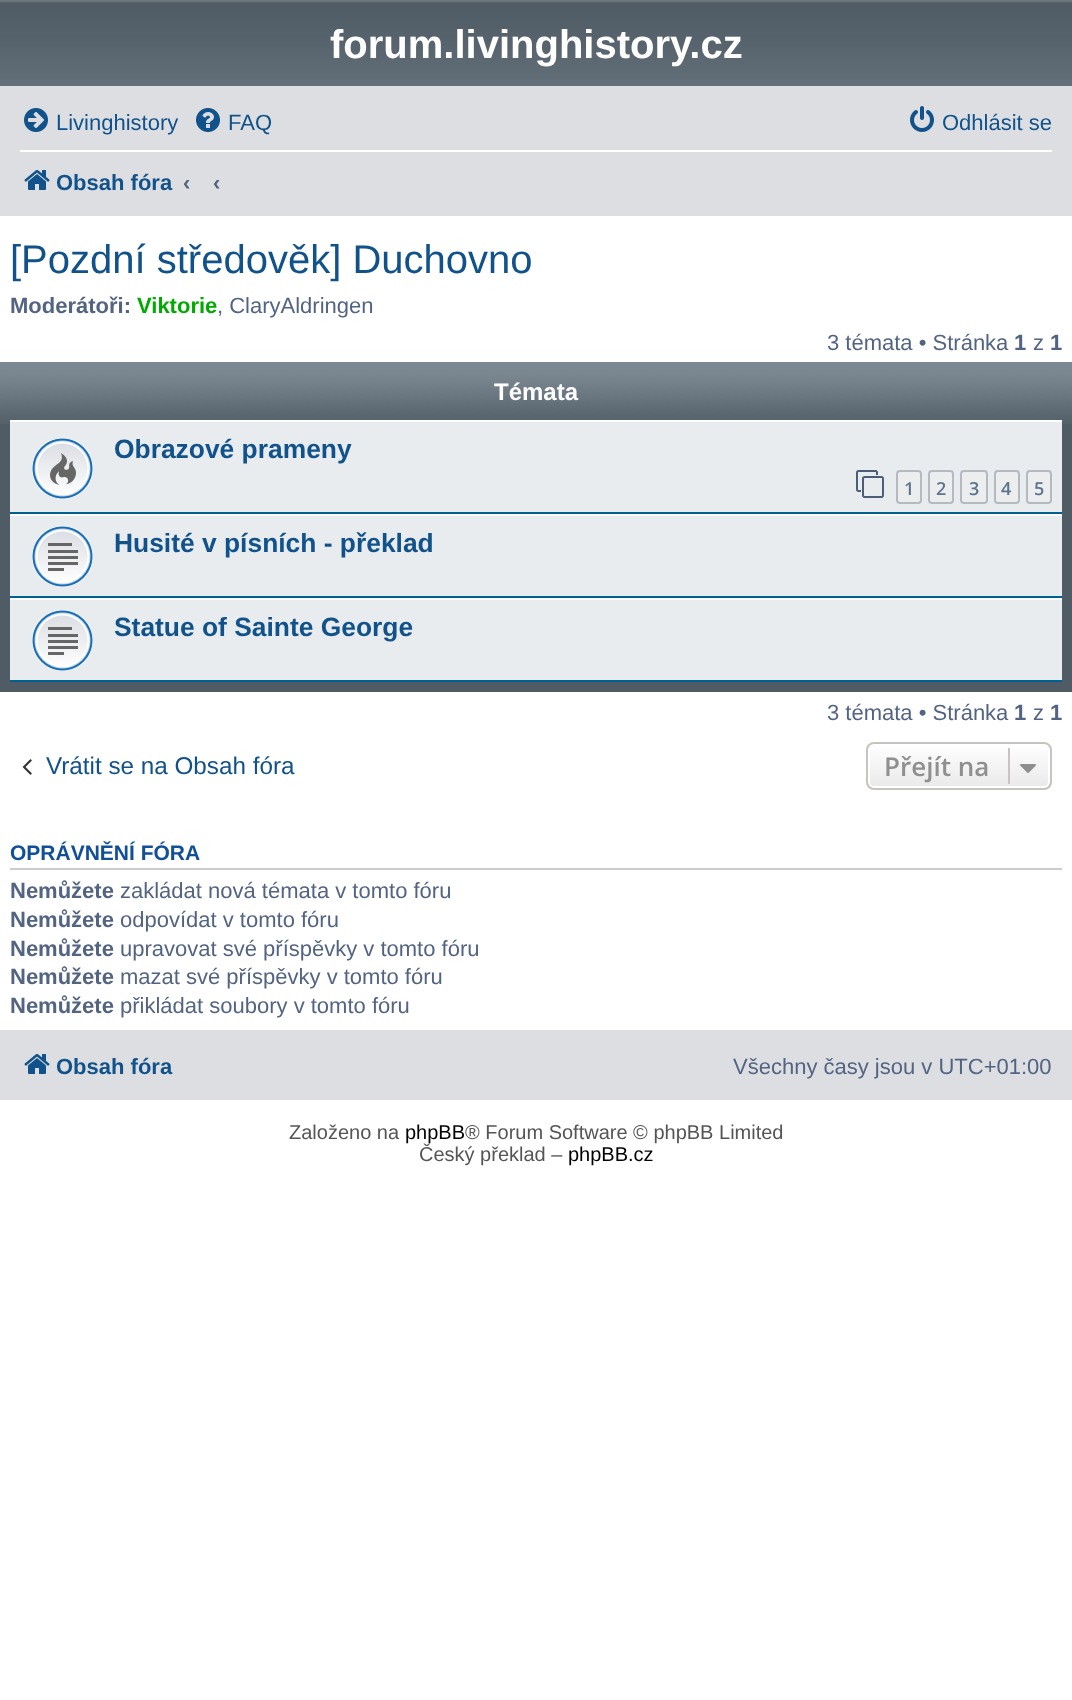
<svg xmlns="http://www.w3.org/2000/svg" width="1072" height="1700">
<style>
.a{font:bold 40px Liberation Sans;fill:#fff}
.b{font:22px Liberation Sans;fill:#105289}
.c{font:bold 22px Liberation Sans;fill:#105289}
.d{font:bold 22px Liberation Sans;fill:#536482}
.e{font:40px Liberation Sans;fill:#105289}
.f{font:bold 22px Liberation Sans;fill:#0a0}
.g{font:22px Liberation Sans;fill:#536482}
.h{font:bold 24px Liberation Sans;fill:#fff}
.i{font:bold 26.4px Liberation Sans;fill:#105289}
.j{font:600 18px Open Sans;fill:#5c758c}
.k{font:24.25px Liberation Sans;fill:#105289}
.l{font:600 26px Open Sans;fill:#8f8f8f}
.m{font:bold 21px Liberation Sans;fill:#115098}
.n{font:20px Liberation Sans;fill:#555}
.o{font:20px Liberation Sans;fill:#000}
</style>
<defs>
<clipPath id="clip1"><rect x="866" y="742" width="186" height="48" rx="8"/></clipPath>
<linearGradient id="g1" gradientUnits="userSpaceOnUse" x1="959" y1="744" x2="959" y2="788"><stop offset="0" stop-color="#fff"/><stop offset="1" stop-color="#e9e9e9"/></linearGradient>
</defs>
<rect width="100%" height="100%" fill="#fff"/>
<image href="1.png" x="0" y="0" width="1072" height="86"/>
<path fill="#dcdee2" d="M0 86h1072v130H0z"/>
<image href="2.png" x="24" y="108" width="24" height="24"/>
<image href="3.png" x="196" y="108" width="24" height="24"/>
<image href="4.png" x="910" y="106" width="24" height="26"/>
<path fill="#fff" d="M20 150h1032v2H20z"/>
<image href="5.png" x="24" y="170" width="26" height="20"/>
<path fill="#505c65" d="M0 424h1072v268H0z"/>
<image href="6.png" x="0" y="362" width="1072" height="62"/>
<path fill="#e8ecee" d="M10 422h1052v90H10z"/>
<path fill="#fff" d="M10 420h1052v2H10z"/>
<path fill="#00608f" d="M10 512h1052v2H10z"/>
<image href="7.png" x="32" y="438" width="61" height="61"/>
<image href="8.png" x="856" y="470" width="28" height="28"/>
<rect fill="#ecedee" stroke="#b4bac0" stroke-width="2" x="897" y="471" width="24" height="32" rx="3"/>
<rect fill="#ecedee" stroke="#b4bac0" stroke-width="2" x="929" y="471" width="24" height="32" rx="3"/>
<rect fill="#ecedee" stroke="#b4bac0" stroke-width="2" x="961" y="471" width="26" height="32" rx="3"/>
<rect fill="#ecedee" stroke="#b4bac0" stroke-width="2" x="995" y="471" width="24" height="32" rx="3"/>
<rect fill="#ecedee" stroke="#b4bac0" stroke-width="2" x="1027" y="471" width="24" height="32" rx="3"/>
<path fill="#e8ecee" d="M10 516h1052v80H10z"/>
<path fill="#fff" d="M10 514h1052v2H10z"/>
<path fill="#00608f" d="M10 596h1052v2H10z"/>
<image href="9.png" x="32" y="526" width="61" height="61"/>
<path fill="#e8ecee" d="M10 600h1052v80H10z"/>
<path fill="#fff" d="M10 598h1052v2H10z"/>
<path fill="#00608f" d="M10 680h1052v2H10z"/>
<image href="9.png" x="32" y="610" width="61" height="61"/>
<image href="10.png" x="22" y="759" width="10" height="16"/>
<g clip-path="url(#clip1)">
<path fill="url(#g1)" d="M866 744h186v44H866z"/>
</g>
<rect fill="none" stroke="#fff" stroke-width="2" x="869" y="745" width="180" height="42" rx="5"/>
<rect fill="none" stroke="#c7c3bf" stroke-width="2" x="867" y="743" width="184" height="46" rx="7"/>
<path fill="#c7c3bf" d="M1008 748h2v36H1008z"/>
<image href="11.png" x="1020" y="764" width="16" height="9"/>
<path fill="#ccc" d="M10 868h1052v2H10z"/>
<path fill="#dcdee2" d="M0 1030h1072v70H0z"/>
<image href="5.png" x="24" y="1054" width="26" height="20"/>
<text class="a" x="330" y="58">forum.livinghistory.cz</text>
<text class="b" x="56" y="130">Livinghistory</text>
<text class="b" x="228" y="130">FAQ</text>
<text class="b" x="942" y="130">Odhlásit se</text>
<text class="c" x="56" y="190">Obsah fóra</text>
<text class="d" x="183" y="190">‹</text>
<text class="d" x="213" y="190">‹</text>
<text class="e" x="10" y="273">[Pozdní středověk] Duchovno</text>
<text class="d" x="10" y="313">Moderátoři:</text>
<text class="f" x="137" y="313">Viktorie</text>
<text class="g" x="217" y="313">, ClaryAldringen</text>
<text class="g" x="827" y="350">3 témata • Stránka</text>
<text class="d" x="1014" y="350">1</text>
<text class="g" x="1033" y="350">z</text>
<text class="d" x="1050" y="350">1</text>
<text class="h" x="494" y="400">Témata</text>
<text class="i" x="114" y="458">Obrazové prameny</text>
<text class="j" x="904" y="495">1</text>
<text class="j" x="936" y="495">2</text>
<text class="j" x="969" y="495">3</text>
<text class="j" x="1001" y="495">4</text>
<text class="j" x="1034" y="495">5</text>
<text class="i" x="114" y="552">Husité v písních - překlad</text>
<text class="i" x="114" y="636">Statue of Sainte George</text>
<text class="g" x="827" y="720">3 témata • Stránka</text>
<text class="d" x="1014" y="720">1</text>
<text class="g" x="1033" y="720">z</text>
<text class="d" x="1050" y="720">1</text>
<text class="k" x="46" y="774">Vrátit se na Obsah fóra</text>
<text class="l" x="884" y="776">Přejít na</text>
<text class="m" x="10" y="860">OPRÁVNĚNÍ FÓRA</text>
<text class="d" x="10" y="898">Nemůžete</text>
<text class="g" x="120" y="898">zakládat nová témata v tomto fóru</text>
<text class="d" x="10" y="927">Nemůžete</text>
<text class="g" x="120" y="927">odpovídat v tomto fóru</text>
<text class="d" x="10" y="956">Nemůžete</text>
<text class="g" x="120" y="956">upravovat své příspěvky v tomto fóru</text>
<text class="d" x="10" y="984">Nemůžete</text>
<text class="g" x="120" y="984">mazat své příspěvky v tomto fóru</text>
<text class="d" x="10" y="1013">Nemůžete</text>
<text class="g" x="120" y="1013">přikládat soubory v tomto fóru</text>
<text class="c" x="56" y="1074">Obsah fóra</text>
<text class="g" x="733" y="1074">Všechny časy jsou v UTC+01:00</text>
<text class="n" x="289" y="1139">Založeno na</text>
<text class="o" x="405" y="1139">phpBB</text>
<text class="n" x="465" y="1139">® Forum Software © phpBB Limited</text>
<text class="n" x="419" y="1161">Český překlad –</text>
<text class="o" x="568" y="1161">phpBB.cz</text>
</svg>
